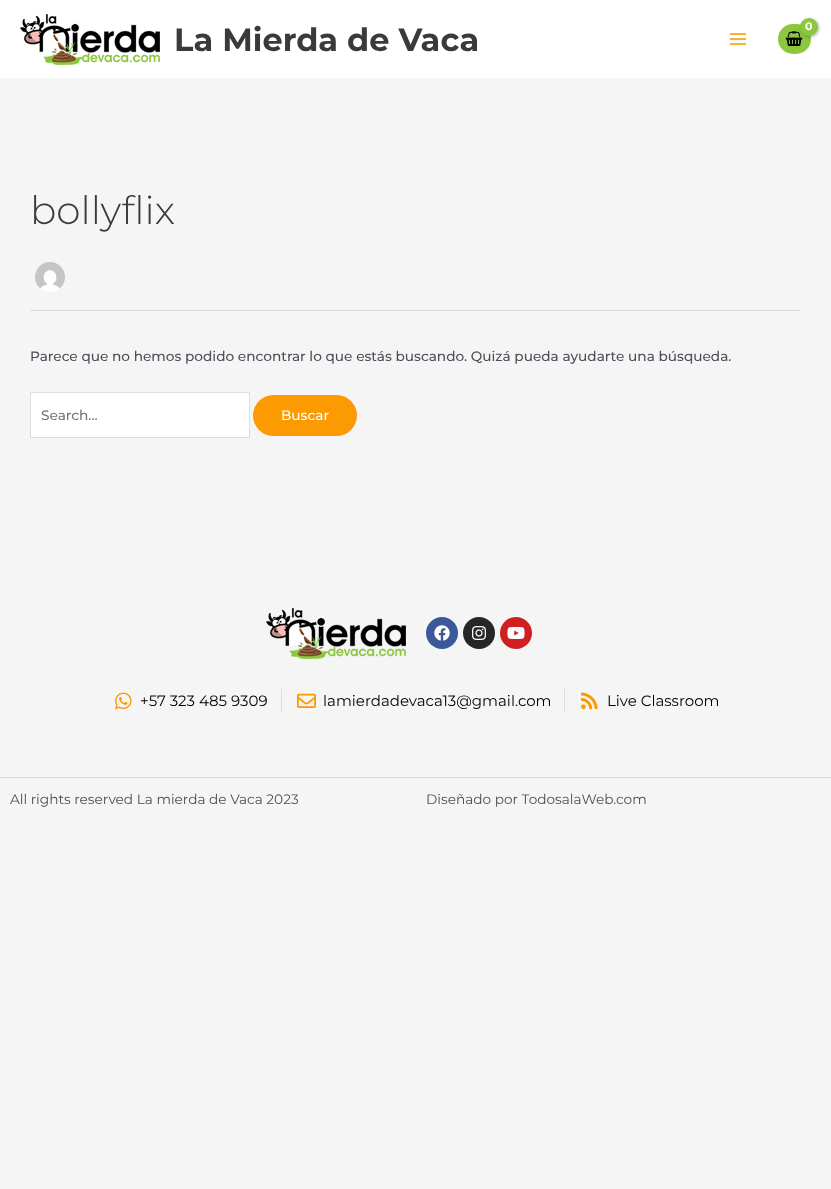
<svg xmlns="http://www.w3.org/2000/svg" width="831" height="1189">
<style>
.a{font:bold 32px Montserrat;fill:#3a3a3a}
.b{font:bold 11px Montserrat;fill:#fff}
.c{font:300 39px Montserrat;fill:#3a3a3a}
.d{font:500 13.68px Montserrat;fill:#4b4f58}
.e{font:500 13.68px Montserrat;fill:#757575}
.f{font:500 13.68px Montserrat;fill:#fff}
.g{font:15px Montserrat;fill:#000}
.h{font:13.68px Montserrat;fill:#4b4f58}
</style>
<rect width="100%" height="100%" fill="#f5f5f5"/>
<path fill="#fff" d="M0 0h831v78H0z"/>
<image href="1.png" x="20" y="14" width="140" height="51"/>
<rect fill="#8cc73f" x="778" y="24" width="33" height="30" rx="15"/>
<image href="2.png" x="785" y="31" width="18" height="15"/>
<rect fill="#0000004d" filter="blur(1.5px)" x="801" y="19" width="18" height="18" rx="9"/>
<circle fill="#8cc73f" cx="809" cy="27" r="9"/>
<image href="3.png" x="729" y="33" width="18" height="12"/>
<path fill="#ddd" d="M30 310h771v1H30z"/>
<image href="4.png" x="35" y="262" width="30" height="30"/>
<path fill="#fff" stroke="#ddd" d="M30.5 392.5h219v45H30.5z"/>
<rect fill="#fc9a01" x="253" y="395" width="104" height="41" rx="20.5"/>
<image href="5.png" x="266" y="608" width="140" height="51"/>
<circle fill="#3b5998" cx="442" cy="633" r="16"/>
<image href="6.png" x="434" y="625" width="16" height="16"/>
<circle fill="#262626" cx="479" cy="633" r="16"/>
<image href="7.png" x="472" y="626" width="14" height="14"/>
<circle fill="#cd201f" cx="516" cy="633" r="16"/>
<image href="8.png" x="507" y="627" width="18" height="12"/>
<image href="9.png" x="115" y="692" width="17" height="18"/>
<path fill="#ddd" d="M281 689h1v23H281z"/>
<image href="10.png" x="297" y="693" width="19" height="15"/>
<path fill="#ddd" d="M564 689h1v23H564z"/>
<image href="11.png" x="581" y="692" width="17" height="18"/>
<path fill="#dbdbdb" d="M0 777h831v1H0z"/>
<text class="a" x="174" y="51">La Mierda de Vaca</text>
<text class="b" x="805" y="30">0</text>
<text class="c" x="30" y="224">bollyflix</text>
<text class="d" x="30" y="361">Parece que no hemos podido encontrar lo que estás buscando. Quizá pueda ayudarte una búsqueda.</text>
<text class="e" x="41" y="420">Search...</text>
<text class="f" x="281" y="420">Buscar</text>
<text class="g" x="140" y="706">+57 323 485 9309</text>
<text class="g" x="323" y="706">lamierdadevaca13@gmail.com</text>
<text class="g" x="607" y="706">Live Classroom</text>
<text class="h" x="10" y="804">All rights reserved La mierda de Vaca 2023</text>
<text class="h" x="426" y="804">Diseñado por TodosalaWeb.com</text>
</svg>
